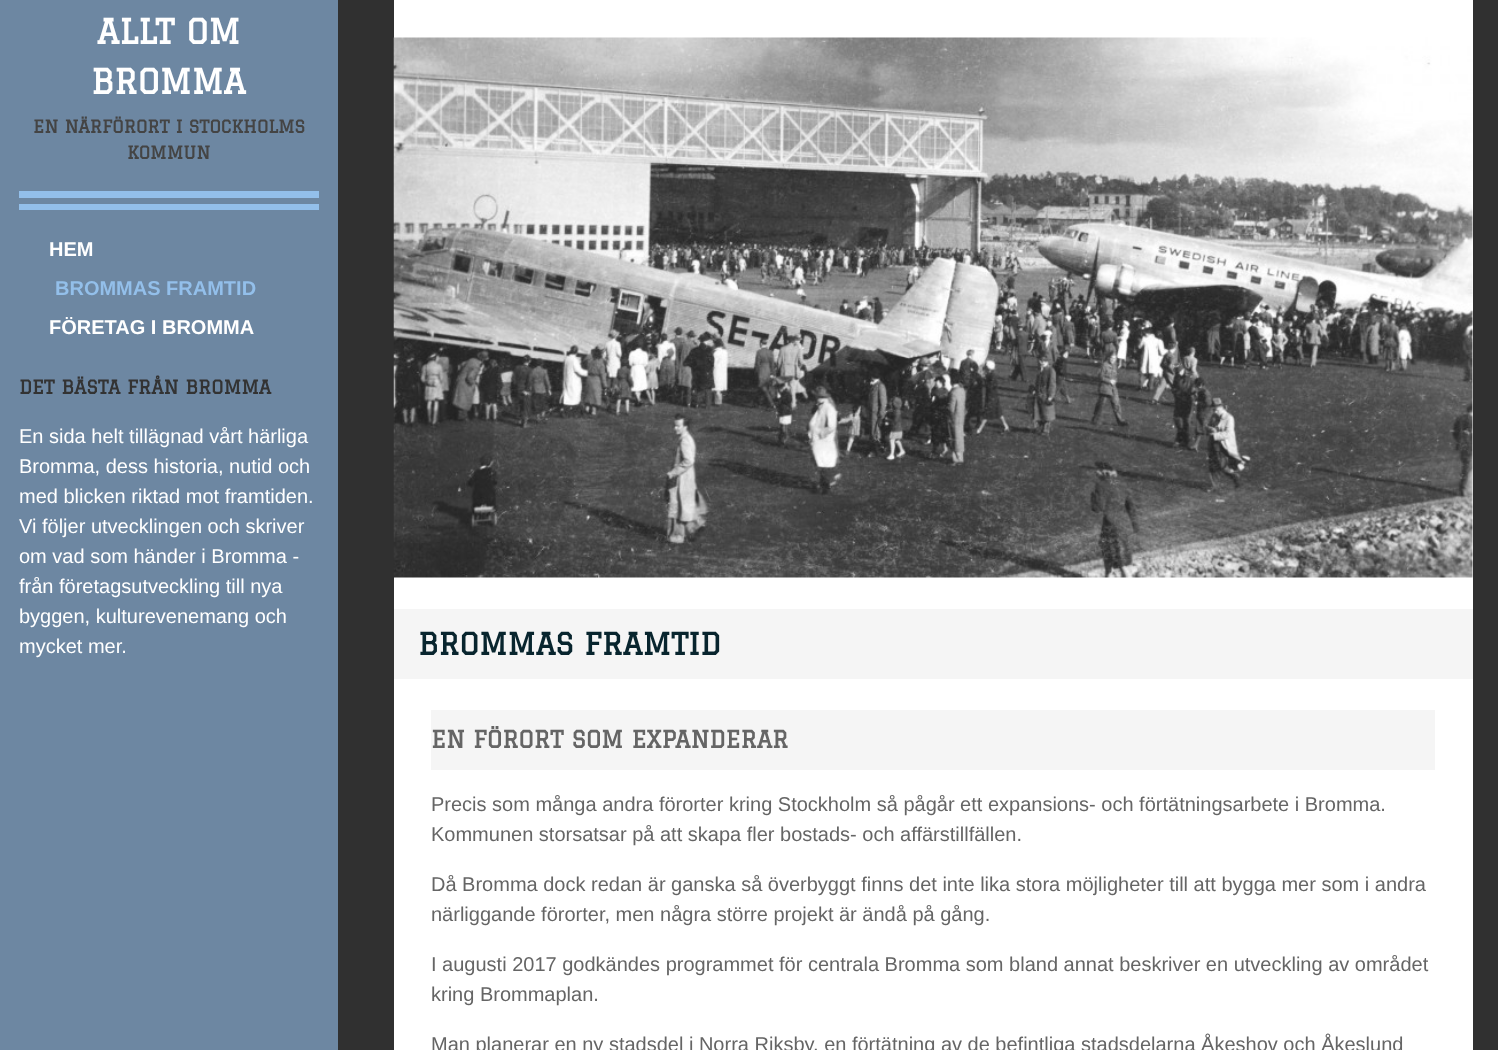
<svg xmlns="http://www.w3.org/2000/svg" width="1498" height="1050">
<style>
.a{font:bold 33.75px Graduate;fill:#fff}
.b{font:bold 17.5px Graduate;fill:#444}
.c{font:bold 20px Liberation Sans;fill:#fff}
.d{font:bold 20px Liberation Sans;fill:#93bfea}
.e{font:bold 18.75px Graduate;fill:#333}
.f{font:20px Liberation Sans;fill:#fff}
.g{font:bold 30px Graduate;fill:#08252e}
.h{font:bold 23.4px Graduate;fill:#656565}
.i{font:20px Liberation Sans;fill:#656565}
</style>
<rect width="100%" height="100%" fill="#303030"/>
<path fill="#6d87a2" d="M0 0h338v1050H0z"/>
<path fill="#93bfea" d="M19 191h300v7H19z"/>
<path fill="#93bfea" d="M19 204h300v6H19z"/>
<path fill="#fff" d="M394 0h1079v1050H394z"/>
<image href="1.png" x="393" y="37" width="1080" height="541"/>
<path fill="#f5f5f5" d="M394 609h1079v70H394z"/>
<path fill="#f5f5f5" d="M431 710h1004v60H431z"/>
<text class="a" x="97" y="44">ALLT OM</text>
<text class="a" x="91" y="94">BROMMA</text>
<text class="b" x="33" y="133">EN NÄRFÖRORT I STOCKHOLMS</text>
<text class="b" x="127" y="159">KOMMUN</text>
<text class="c" x="49" y="256">HEM</text>
<text class="d" x="55" y="295">BROMMAS FRAMTID</text>
<text class="c" x="49" y="334">FÖRETAG I BROMMA</text>
<text class="e" x="19" y="394">DET BÄSTA FRÅN BROMMA</text>
<text class="f" x="19" y="443">En sida helt tillägnad vårt härliga</text>
<text class="f" x="19" y="473">Bromma, dess historia, nutid och</text>
<text class="f" x="19" y="503">med blicken riktad mot framtiden.</text>
<text class="f" x="19" y="533">Vi följer utvecklingen och skriver</text>
<text class="f" x="19" y="563">om vad som händer i Bromma -</text>
<text class="f" x="19" y="593">från företagsutveckling till nya</text>
<text class="f" x="19" y="623">byggen, kulturevenemang och</text>
<text class="f" x="19" y="653">mycket mer.</text>
<text class="g" x="418" y="655">BROMMAS FRAMTID</text>
<text class="h" x="431" y="748">EN FÖRORT SOM EXPANDERAR</text>
<text class="i" x="431" y="811">Precis som många andra förorter kring Stockholm så pågår ett expansions- och förtätningsarbete i Bromma.</text>
<text class="i" x="431" y="841">Kommunen storsatsar på att skapa fler bostads- och affärstillfällen.</text>
<text class="i" x="431" y="891">Då Bromma dock redan är ganska så överbyggt finns det inte lika stora möjligheter till att bygga mer som i andra</text>
<text class="i" x="431" y="921">närliggande förorter, men några större projekt är ändå på gång.</text>
<text class="i" x="431" y="971">I augusti 2017 godkändes programmet för centrala Bromma som bland annat beskriver en utveckling av området</text>
<text class="i" x="431" y="1001">kring Brommaplan.</text>
<text class="i" x="431" y="1051">Man planerar en ny stadsdel i Norra Riksby, en förtätning av de befintliga stadsdelarna Åkeshov och Åkeslund</text>
</svg>
